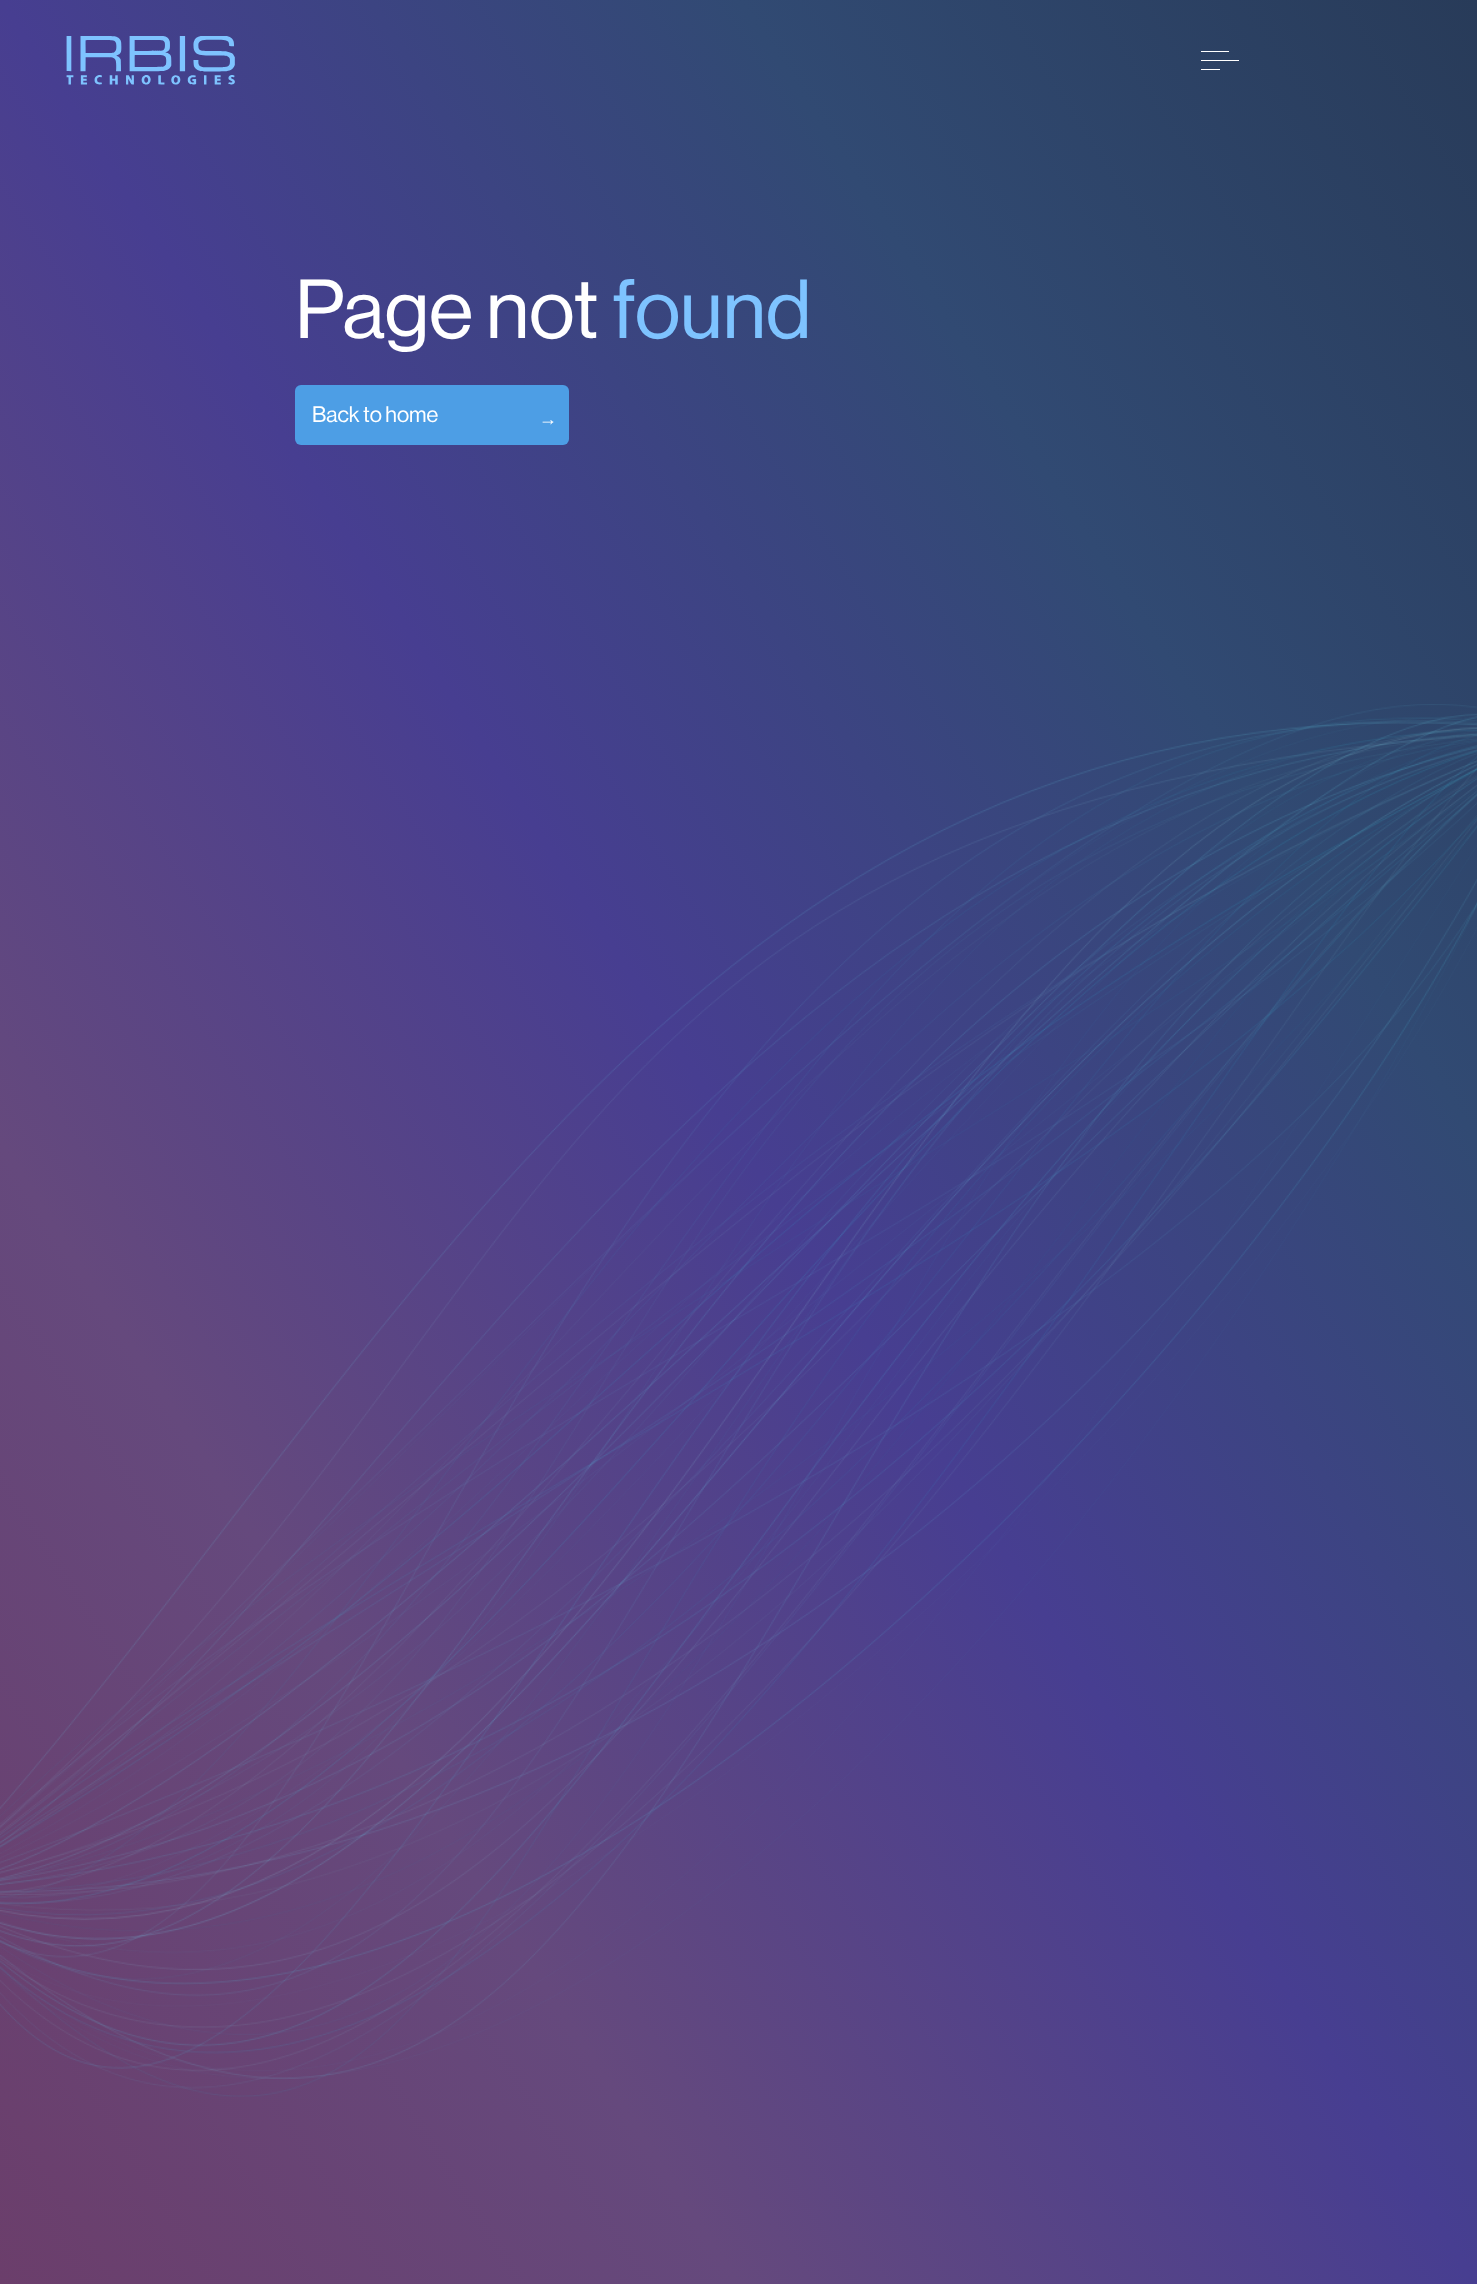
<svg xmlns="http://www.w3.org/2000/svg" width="1477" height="2284">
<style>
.a{font:500 82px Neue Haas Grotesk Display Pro;fill:#fff}
.b{font:500 82px Neue Haas Grotesk Display Pro;fill:#7ec3ff}
.c{font:500 22px Neue Haas Grotesk Display Pro;fill:#fff}
.d{font:18px Liberation Sans;fill:#fff}
</style>
<defs>
<linearGradient id="g1" gradientUnits="userSpaceOnUse" x1="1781" y1="469" x2="-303" y2="1816"><stop offset="0" stop-color="#283b59"/><stop offset="0.25" stop-color="#314a73"/><stop offset="0.5" stop-color="#473e91"/><stop offset="0.75" stop-color="#65497d"/><stop offset="1" stop-color="#6b3e6b"/></linearGradient>
</defs>
<rect width="100%" height="100%" fill="#fff"/>
<path fill="url(#g1)" d="M0 0h1477v2284H0z"/>
<image href="1.png" x="66" y="36" width="169" height="49"/>
<path fill="#fff" d="M1201 51h28v1H1201z"/>
<path fill="#fff" d="M1201 60h38v1H1201z"/>
<path fill="#fff" d="M1201 69h19v1H1201z"/>
<rect fill="#4d9ee5" x="295" y="385" width="274" height="60" rx="6"/>
<image href="2.png" x="0" y="704" width="1477" height="1393"/>
<text class="a" x="295" y="338">Page not</text>
<text class="b" x="612" y="338">found</text>
<text class="c" x="312" y="422">Back to home</text>
<text class="d" x="539" y="425">→</text>
</svg>
